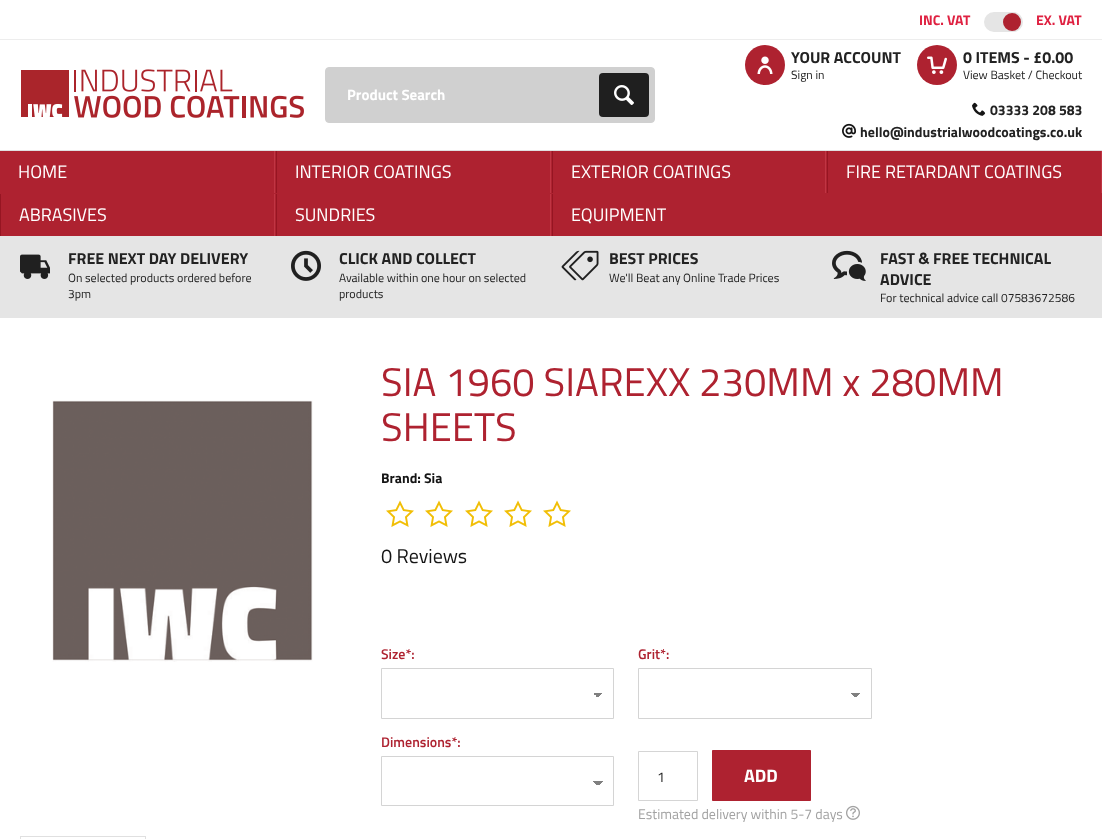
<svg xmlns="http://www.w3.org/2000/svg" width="1102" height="839">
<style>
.a{font:bold 14px Titillium Web;fill:#df2141}
.b{font:bold 15px Titillium Web;fill:#fff}
.c{font:bold 16px Titillium Web;fill:#222}
.d{font:12px Titillium Web;fill:#222}
.e{font:bold 14px Titillium Web;fill:#222}
.f{font:18px Titillium Web;fill:#fff}
.g{font:40px Titillium Web;fill:#ae2230}
.h{font:bold 14px Titillium Web;fill:#151515}
.i{font:20px Titillium Web;fill:#151515}
.j{font:600 14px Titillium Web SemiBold;fill:#ae2230}
.k{font:14px Titillium Web;fill:#222}
.l{font:bold 18px Titillium Web;fill:#fff}
.m{font:14px Titillium Web;fill:#a2a2a2}
</style>
<defs>
<linearGradient id="g1" gradientUnits="userSpaceOnUse" x1="598" y1="693" x2="603" y2="698"><stop offset="0.5" stop-color="#808080"/><stop offset="0.5" stop-color="#fff"/></linearGradient>
<linearGradient id="g2" gradientUnits="userSpaceOnUse" x1="593" y1="698" x2="598" y2="693"><stop offset="0.5" stop-color="#fff"/><stop offset="0.5" stop-color="#808080"/></linearGradient>
<linearGradient id="g3" gradientUnits="userSpaceOnUse" x1="856" y1="693" x2="861" y2="698"><stop offset="0.5" stop-color="#808080"/><stop offset="0.5" stop-color="#fff"/></linearGradient>
<linearGradient id="g4" gradientUnits="userSpaceOnUse" x1="851" y1="698" x2="856" y2="693"><stop offset="0.5" stop-color="#fff"/><stop offset="0.5" stop-color="#808080"/></linearGradient>
<linearGradient id="g5" gradientUnits="userSpaceOnUse" x1="598" y1="781" x2="603" y2="786"><stop offset="0.5" stop-color="#808080"/><stop offset="0.5" stop-color="#fff"/></linearGradient>
<linearGradient id="g6" gradientUnits="userSpaceOnUse" x1="593" y1="786" x2="598" y2="781"><stop offset="0.5" stop-color="#fff"/><stop offset="0.5" stop-color="#808080"/></linearGradient>
</defs>
<rect width="100%" height="100%" fill="#fff"/>
<path fill="#e0e0e0" d="M0 150h1102v1H0z"/>
<path fill="#ededed" d="M0 39h1102v1H0z"/>
<rect fill="#e5e5e5" x="984" y="12" width="39" height="20" rx="10"/>
<circle fill="#ae2230" cx="1012" cy="22" r="9"/>
<image href="1.png" x="21" y="69" width="283" height="49"/>
<rect fill="#d0d0d0" stroke="#d0d0d0" x="325.5" y="67.5" width="329" height="55" rx="3.5"/>
<rect fill="#1f1f1f" x="599" y="73" width="50" height="44" rx="4"/>
<image href="2.png" x="614" y="85" width="20" height="20"/>
<circle fill="#ae2230" cx="765" cy="65" r="20"/>
<image href="3.png" x="757" y="56" width="16" height="18"/>
<circle fill="#ae2230" cx="937" cy="65" r="20"/>
<image href="4.png" x="927" y="56" width="20" height="18"/>
<image href="5.png" x="972" y="102" width="14" height="14"/>
<image href="6.png" x="842" y="123" width="14" height="15"/>
<path fill="#ae2230" d="M0 151h1102v85H0z"/>
<path fill="#c03543" d="M274 151h1v42H274z"/>
<path fill="#c03543" d="M550 151h1v42H550z"/>
<path fill="#961522" d="M276 151h1v42H276z"/>
<path fill="#c03543" d="M825 151h1v42H825z"/>
<path fill="#961522" d="M552 151h1v42H552z"/>
<path fill="#c03543" d="M1101 151h1v42H1101z"/>
<path fill="#961522" d="M827 151h1v42H827z"/>
<path fill="#c03543" d="M274 194h1v42H274z"/>
<path fill="#961522" d="M0 194h1v42H0z"/>
<path fill="#c03543" d="M550 194h1v42H550z"/>
<path fill="#961522" d="M276 194h1v42H276z"/>
<path fill="#961522" d="M552 194h1v42H552z"/>
<path fill="#e5e5e5" d="M0 236h1102v82H0z"/>
<image href="7.png" x="20" y="254" width="30" height="25"/>
<image href="8.png" x="291" y="250" width="30" height="31"/>
<image href="9.png" x="561" y="250" width="38" height="31"/>
<image href="10.png" x="832" y="250" width="34" height="31"/>
<image href="11.png" x="52" y="400" width="261" height="262"/>
<image href="12.png" x="386" y="500" width="28" height="27"/>
<image href="12.png" x="425" y="500" width="28" height="27"/>
<image href="12.png" x="465" y="500" width="28" height="27"/>
<image href="12.png" x="504" y="500" width="28" height="27"/>
<image href="12.png" x="543" y="500" width="28" height="27"/>
<path fill="url(#g1)" d="M598 693h5v4H598z"/>
<path fill="url(#g2)" d="M593 693h5v4H593z"/>
<path fill="none" stroke="#d4d4d4" d="M381.5 668.5h232v50H381.5z"/>
<path fill="url(#g3)" d="M856 693h5v4H856z"/>
<path fill="url(#g4)" d="M851 693h5v4H851z"/>
<path fill="none" stroke="#d4d4d4" d="M638.5 668.5h233v50H638.5z"/>
<path fill="url(#g5)" d="M598 781h5v4H598z"/>
<path fill="url(#g6)" d="M593 781h5v4H593z"/>
<path fill="none" stroke="#d4d4d4" d="M381.5 756.5h232v49H381.5z"/>
<path fill="none" stroke="#d5d5d5" d="M638.5 751.5h59v49H638.5z"/>
<path fill="#ae2230" stroke="#ae2230" d="M712.5 750.5h98v50H712.5z"/>
<image href="13.png" x="846" y="805" width="14" height="15"/>
<path fill="#e0e0e0" d="M20 836h126v1H20z"/>
<path fill="#e0e0e0" d="M145 836h1v3H145z"/>
<path fill="#e0e0e0" d="M20 836h1v3H20z"/>
<text class="a" x="919" y="25">INC. VAT</text>
<text class="a" x="1036" y="25">EX. VAT</text>
<text class="b" x="347" y="100">Product Search</text>
<text class="c" x="791" y="63">YOUR ACCOUNT</text>
<text class="d" x="791" y="79">Sign in</text>
<text class="c" x="963" y="63">0 ITEMS - £0.00</text>
<text class="d" x="963" y="79">View Basket / Checkout</text>
<text class="e" x="990" y="115">03333 208 583</text>
<text class="e" x="860" y="137">hello@industrialwoodcoatings.co.uk</text>
<text class="f" x="18" y="178">HOME</text>
<text class="f" x="295" y="178">INTERIOR COATINGS</text>
<text class="f" x="571" y="178">EXTERIOR COATINGS</text>
<text class="f" x="846" y="178">FIRE RETARDANT COATINGS</text>
<text class="f" x="19" y="221">ABRASIVES</text>
<text class="f" x="295" y="221">SUNDRIES</text>
<text class="f" x="571" y="221">EQUIPMENT</text>
<text class="c" x="68" y="264">FREE NEXT DAY DELIVERY</text>
<text class="d" x="68" y="282">On selected products ordered before</text>
<text class="d" x="68" y="298">3pm</text>
<text class="c" x="339" y="264">CLICK AND COLLECT</text>
<text class="d" x="339" y="282">Available within one hour on selected</text>
<text class="d" x="339" y="298">products</text>
<text class="c" x="609" y="264">BEST PRICES</text>
<text class="d" x="609" y="282">We'll Beat any Online Trade Prices</text>
<text class="c" x="880" y="264">FAST &amp; FREE TECHNICAL</text>
<text class="c" x="880" y="285">ADVICE</text>
<text class="d" x="880" y="302">For technical advice call 07583672586</text>
<text class="g" x="381" y="396">SIA 1960 SIAREXX 230MM x 280MM</text>
<text class="g" x="381" y="441">SHEETS</text>
<text class="h" x="381" y="483">Brand: Sia</text>
<text class="i" x="381" y="563">0 Reviews</text>
<text class="j" x="381" y="659">Size*:</text>
<text class="j" x="638" y="659">Grit*:</text>
<text class="j" x="381" y="747">Dimensions*:</text>
<text class="k" x="657" y="782">1</text>
<text class="l" x="744" y="782">ADD</text>
<text class="m" x="638" y="819">Estimated delivery within 5-7 days</text>
</svg>
